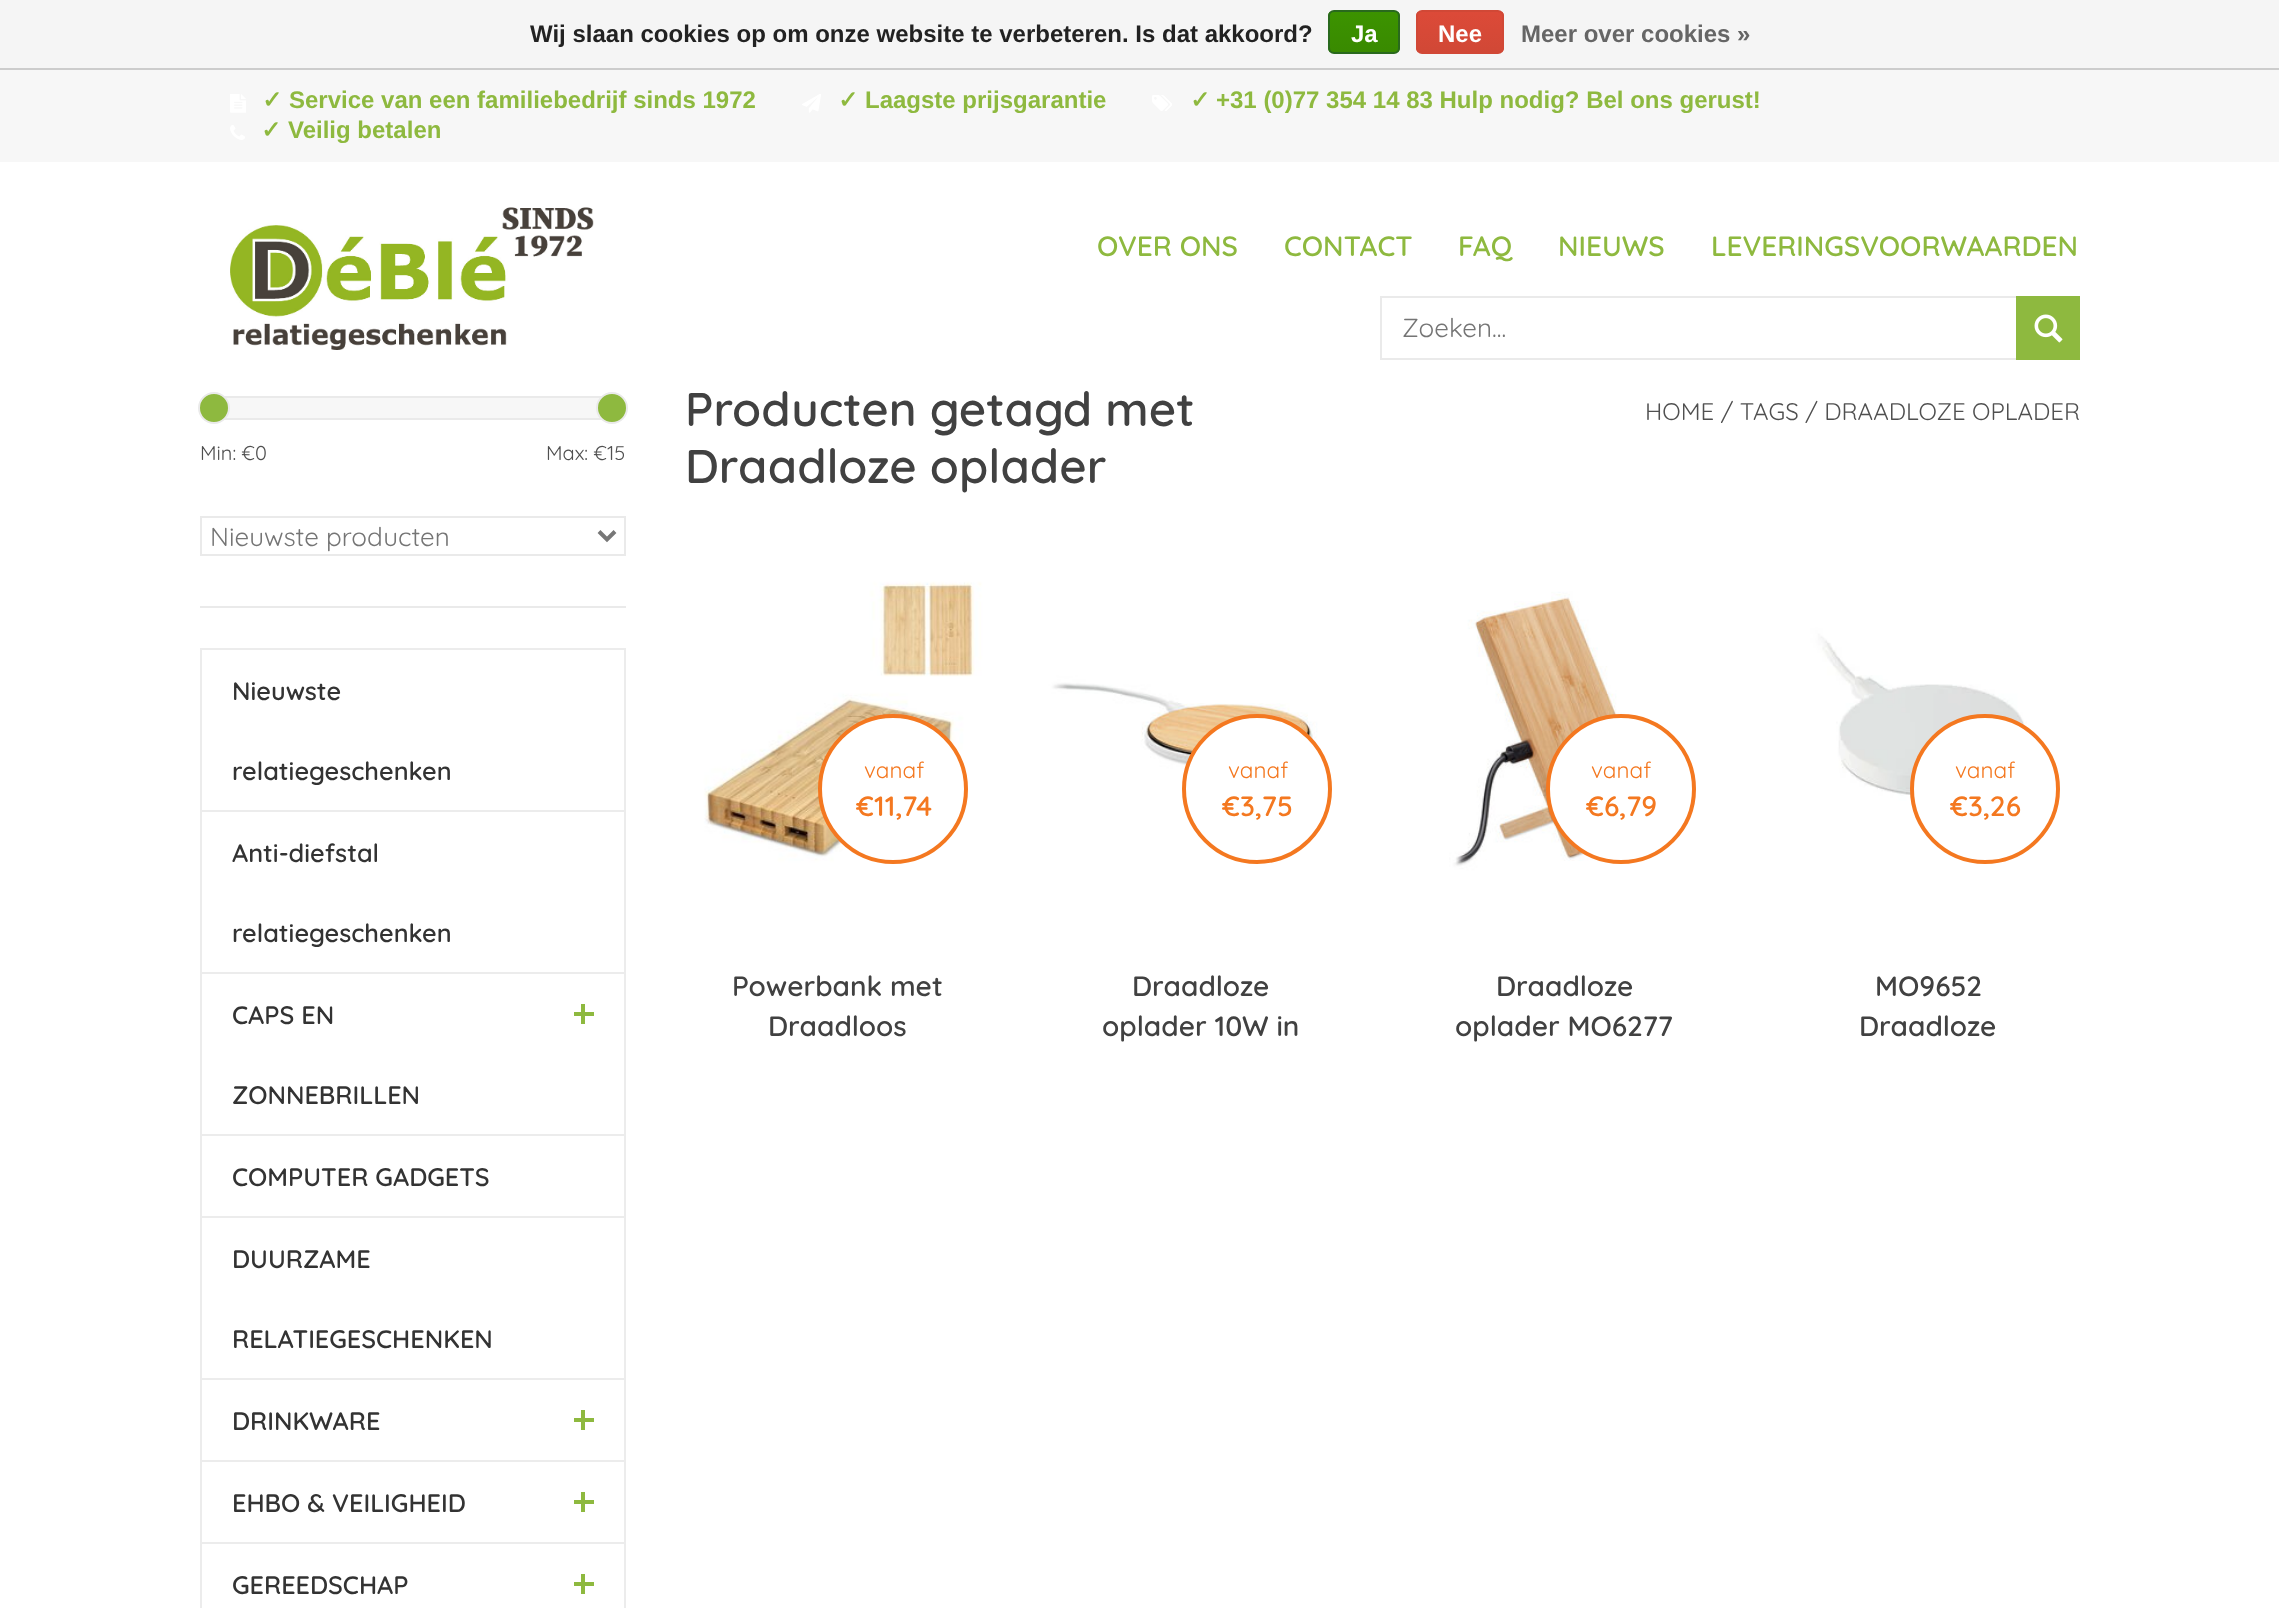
<svg xmlns="http://www.w3.org/2000/svg" width="2279" height="1608">
<style>
.a{font:bold 24px Liberation Sans;fill:#222}
.b{font:bold 24px Liberation Sans;fill:#fff}
.c{font:bold 24px Liberation Sans;fill:#666}
.d{font:bold 24px DejaVu Sans;fill:#8eb93f}
.e{font:bold 24px Liberation Sans;fill:#8eb93f}
.f{font:600 28px Quicksand;fill:#8eb93f}
.g{font:26px Quicksand;fill:#757575}
.h{font:20px Quicksand;fill:#505050}
.i{font:600 25.25px Quicksand;fill:#333}
.j{font:600 47.25px Quicksand;fill:#414141}
.k{font:24px Quicksand;fill:#505050}
.l{font:22.5px Quicksand;fill:#f47820}
.m{font:600 28px Quicksand;fill:#f47820}
.n{font:600 28px Quicksand;fill:#414141}
</style>
<defs>
<clipPath id="clip1"><rect x="1328" y="10" width="72" height="44" rx="6"/></clipPath>
<linearGradient id="g1" gradientUnits="userSpaceOnUse" x1="1364" y1="12" x2="1364" y2="52"><stop offset="0" stop-color="#3c9300"/><stop offset="1" stop-color="#398a00"/></linearGradient>
<clipPath id="clip2"><rect x="1416" y="10" width="88" height="44" rx="6"/></clipPath>
<linearGradient id="g2" gradientUnits="userSpaceOnUse" x1="1460" y1="12" x2="1460" y2="52"><stop offset="0" stop-color="#dc4a38"/><stop offset="1" stop-color="#d14836"/></linearGradient>
</defs>
<rect width="100%" height="100%" fill="#fff"/>
<path fill="#f5f5f5" d="M0 0h2279v68H0z"/>
<path fill="#ccc" d="M0 68h2279v2H0z"/>
<g clip-path="url(#clip1)">
<path fill="url(#g1)" d="M1328 12h72v40H1328z"/>
</g>
<rect fill="none" stroke="#29691d" stroke-width="2" x="1329" y="11" width="70" height="42" rx="5"/>
<g clip-path="url(#clip2)">
<path fill="url(#g2)" d="M1416 12h88v40H1416z"/>
</g>
<rect fill="none" stroke="#d14836" stroke-width="2" x="1417" y="11" width="86" height="42" rx="5"/>
<path fill="#f7f7f7" d="M0 70h2279v92H0z"/>
<image href="1.png" x="230" y="94" width="16" height="19"/>
<image href="2.png" x="802" y="94" width="19" height="19"/>
<image href="3.png" x="1152" y="95" width="20" height="16"/>
<image href="4.png" x="230" y="125" width="15" height="15"/>
<image href="5.png" x="230" y="207" width="364" height="143"/>
<path fill="none" stroke="#eaeaea" stroke-width="2" d="M1381 297h698v62H1381z"/>
<path fill="#8eb93f" d="M2016 296h64v64H2016z"/>
<image href="6.png" x="2034" y="314" width="29" height="29"/>
<path fill="#eaeaea" d="M200 606h426v2H200z"/>
<path fill="#f7f7f7" d="M226 398h374v20H226z"/>
<path fill="none" stroke="#eaeaea" stroke-width="2" d="M217 397h396v22H217z"/>
<circle fill="#8eb93f" stroke="#eaeaea" stroke-width="2" cx="214" cy="408" r="15"/>
<circle fill="#8eb93f" stroke="#eaeaea" stroke-width="2" cx="612" cy="408" r="15"/>
<path fill="none" stroke="#eaeaea" stroke-width="2" d="M201 517h424v38H201z"/>
<path fill="none" stroke="#777" stroke-width="4" d="M599 531.5l8 8l8-8"/>
<path fill="none" stroke="#ececec" stroke-width="2" d="M201 649h424v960H201z"/>
<path fill="#ececec" d="M202 810h422v2H202z"/>
<path fill="#ececec" d="M202 972h422v2H202z"/>
<path fill="#ececec" d="M202 1134h422v2H202z"/>
<path fill="#8eb93f" d="M574 1012h20v4H574z"/>
<path fill="#8eb93f" d="M581 1004h4v20H581z"/>
<path fill="#ececec" d="M202 1216h422v2H202z"/>
<path fill="#ececec" d="M202 1378h422v2H202z"/>
<path fill="#ececec" d="M202 1460h422v2H202z"/>
<path fill="#8eb93f" d="M574 1418h20v4H574z"/>
<path fill="#8eb93f" d="M581 1410h4v20H581z"/>
<path fill="#ececec" d="M202 1542h422v2H202z"/>
<path fill="#8eb93f" d="M574 1500h20v4H574z"/>
<path fill="#8eb93f" d="M581 1492h4v20H581z"/>
<path fill="#8eb93f" d="M574 1582h20v4H574z"/>
<path fill="#8eb93f" d="M581 1574h4v20H581z"/>
<image href="7.png" x="686" y="564" width="302" height="320"/>
<circle fill="#fff" stroke="#f47820" stroke-width="4" cx="893" cy="789" r="73"/>
<image href="8.png" x="1048" y="564" width="304" height="320"/>
<circle fill="#fff" stroke="#f47820" stroke-width="4" cx="1257" cy="789" r="73"/>
<image href="9.png" x="1412" y="564" width="304" height="320"/>
<circle fill="#fff" stroke="#f47820" stroke-width="4" cx="1621" cy="789" r="73"/>
<image href="10.png" x="1776" y="564" width="304" height="320"/>
<circle fill="#fff" stroke="#f47820" stroke-width="4" cx="1985" cy="789" r="73"/>
<text class="a" x="530" y="42">Wij slaan cookies op om onze website te verbeteren. Is dat akkoord?</text>
<text class="b" x="1351" y="42">Ja</text>
<text class="b" x="1438" y="42">Nee</text>
<text class="c" x="1521" y="42">Meer over cookies »</text>
<text class="d" x="262" y="108">✓</text>
<text class="e" x="289" y="108">Service van een familiebedrijf sinds 1972</text>
<text class="d" x="838" y="108">✓</text>
<text class="e" x="865" y="108">Laagste prijsgarantie</text>
<text class="d" x="1190" y="108">✓</text>
<text class="e" x="1216" y="108">+31 (0)77 354 14 83 Hulp nodig? Bel ons gerust!</text>
<text class="d" x="261" y="138">✓</text>
<text class="e" x="288" y="138">Veilig betalen</text>
<text class="f" x="1097" y="256">OVER ONS</text>
<text class="f" x="1284" y="256">CONTACT</text>
<text class="f" x="1458" y="256">FAQ</text>
<text class="f" x="1558" y="256">NIEUWS</text>
<text class="f" x="1711" y="256">LEVERINGSVOORWAARDEN</text>
<text class="g" x="1402" y="337">Zoeken...</text>
<text class="h" x="200" y="460">Min: €0</text>
<text class="h" x="546" y="460">Max: €15</text>
<text class="g" x="210" y="546">Nieuwste producten</text>
<text class="i" x="232" y="700">Nieuwste</text>
<text class="i" x="232" y="780">relatiegeschenken</text>
<text class="i" x="232" y="862">Anti-diefstal</text>
<text class="i" x="232" y="942">relatiegeschenken</text>
<text class="i" x="232" y="1024">CAPS EN</text>
<text class="i" x="232" y="1104">ZONNEBRILLEN</text>
<text class="i" x="232" y="1186">COMPUTER GADGETS</text>
<text class="i" x="232" y="1268">DUURZAME</text>
<text class="i" x="232" y="1348">RELATIEGESCHENKEN</text>
<text class="i" x="232" y="1430">DRINKWARE</text>
<text class="i" x="232" y="1512">EHBO &amp; VEILIGHEID</text>
<text class="i" x="232" y="1594">GEREEDSCHAP</text>
<text class="j" x="685" y="426">Producten getagd met</text>
<text class="j" x="685" y="483">Draadloze oplader</text>
<text class="k" x="1645" y="420">HOME / TAGS / DRAADLOZE OPLADER</text>
<text class="l" x="864" y="778">vanaf</text>
<text class="m" x="856" y="816">€11,74</text>
<text class="n" x="732" y="996">Powerbank met</text>
<text class="n" x="768" y="1036">Draadloos</text>
<text class="l" x="1228" y="778">vanaf</text>
<text class="m" x="1222" y="816">€3,75</text>
<text class="n" x="1132" y="996">Draadloze</text>
<text class="n" x="1102" y="1036">oplader 10W in</text>
<text class="l" x="1591" y="778">vanaf</text>
<text class="m" x="1586" y="816">€6,79</text>
<text class="n" x="1496" y="996">Draadloze</text>
<text class="n" x="1455" y="1036">oplader MO6277</text>
<text class="l" x="1955" y="778">vanaf</text>
<text class="m" x="1950" y="816">€3,26</text>
<text class="n" x="1875" y="996">MO9652</text>
<text class="n" x="1859" y="1036">Draadloze</text>
</svg>
